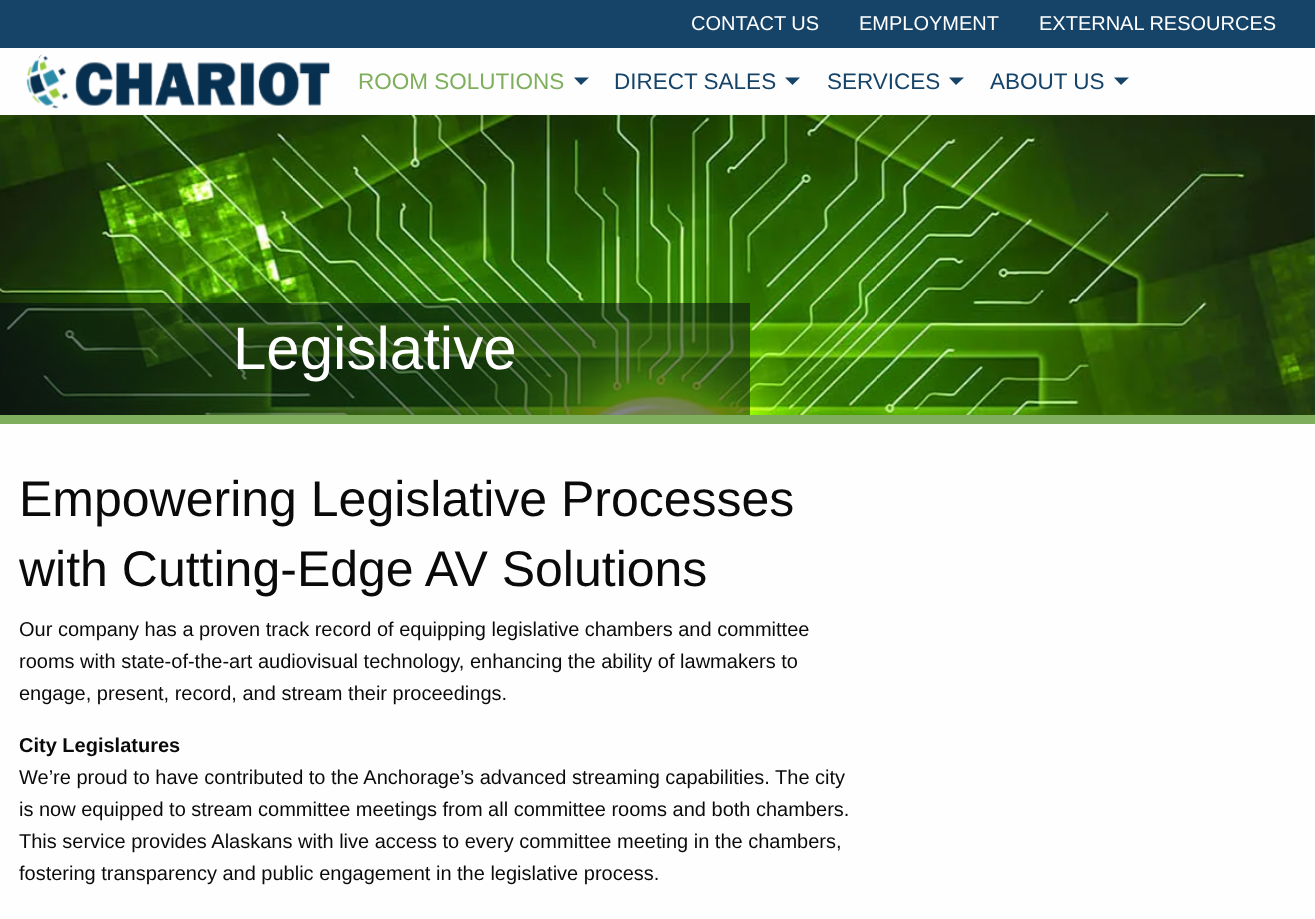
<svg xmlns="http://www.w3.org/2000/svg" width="1315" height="919">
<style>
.a{font:20px Liberation Sans;fill:#fff}
.b{font:22.5px Liberation Sans;fill:#7faf5c}
.c{font:22.5px Liberation Sans;fill:#164469}
.d{font:60px Liberation Sans;fill:#fff}
.e{font:50px Liberation Sans;fill:#0a0a0a}
.f{font:20px Liberation Sans;fill:#0a0a0a}
.g{font:bold 20px Liberation Sans;fill:#0a0a0a}
</style>
<rect width="100%" height="100%" fill="#164469"/>
<path fill="#fefefe" d="M0 48h1315v67H0z"/>
<image href="1.png" x="26" y="54" width="305" height="55"/>
<path fill="#164469" d="M574 77.5h15l-8 7.5z"/>
<path fill="#164469" d="M785 77.5h15l-7.5 7.5z"/>
<path fill="#164469" d="M949 77.5h15l-8 7.5z"/>
<path fill="#164469" d="M1114 77.5h15l-8 7.5z"/>
<path fill="#00000061" filter="blur(12px)" d="M0 400h1315v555H0z"/>
<image href="2.png" x="0" y="115" width="1315" height="300"/>
<path fill="#02061480" d="M0 303h750v112H0z"/>
<path fill="#fefefe" d="M0 424h1315v495H0z"/>
<path fill="#7faf5c" d="M0 415h1315v9H0z"/>
<text class="a" x="691" y="30">CONTACT US</text>
<text class="a" x="859" y="30">EMPLOYMENT</text>
<text class="a" x="1039" y="30">EXTERNAL RESOURCES</text>
<text class="b" x="358" y="89">ROOM SOLUTIONS</text>
<text class="c" x="614" y="89">DIRECT SALES</text>
<text class="c" x="827" y="89">SERVICES</text>
<text class="c" x="990" y="89">ABOUT US</text>
<text class="d" x="233" y="369">Legislative</text>
<text class="e" x="19" y="516">Empowering Legislative Processes</text>
<text class="e" x="19" y="586">with Cutting-Edge AV Solutions</text>
<text class="f" x="19" y="636">Our company has a proven track record of equipping legislative chambers and committee</text>
<text class="f" x="19" y="668">rooms with state-of-the-art audiovisual technology, enhancing the ability of lawmakers to</text>
<text class="f" x="19" y="700">engage, present, record, and stream their proceedings.</text>
<text class="g" x="19" y="752">City Legislatures</text>
<text class="f" x="19" y="784">We’re proud to have contributed to the Anchorage’s advanced streaming capabilities. The city</text>
<text class="f" x="19" y="816">is now equipped to stream committee meetings from all committee rooms and both chambers.</text>
<text class="f" x="19" y="848">This service provides Alaskans with live access to every committee meeting in the chambers,</text>
<text class="f" x="19" y="880">fostering transparency and public engagement in the legislative process.</text>
</svg>
